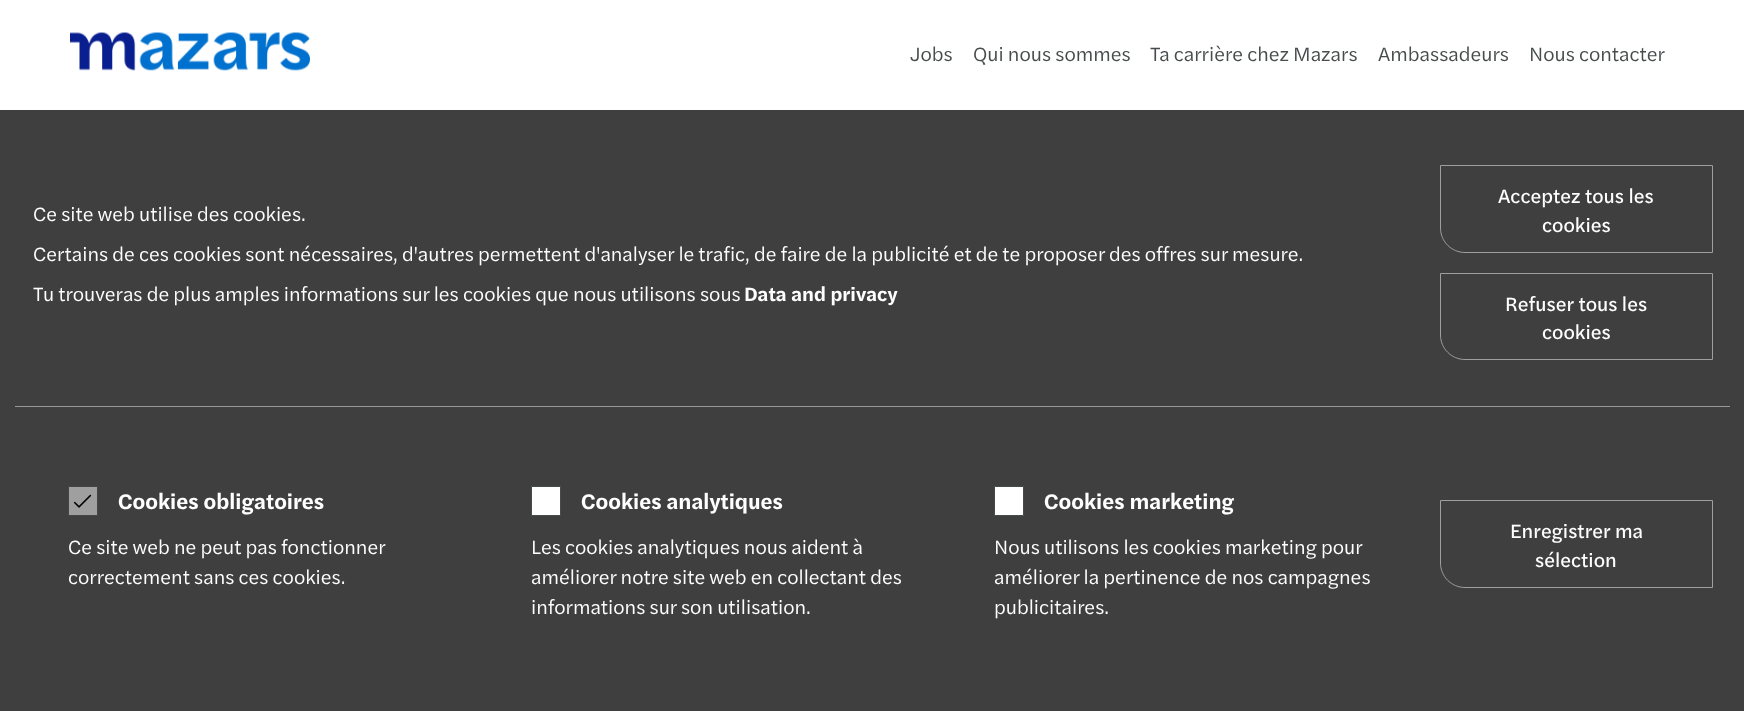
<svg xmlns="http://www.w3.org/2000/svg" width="1744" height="711">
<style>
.a{font:20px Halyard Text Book;fill:#464b4b}
.b{font:20px Halyard Text Book;fill:#fff}
.c{font:600 20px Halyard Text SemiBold;fill:#fff}
.d{font:20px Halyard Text;fill:#fff}
.e{font:600 22px Halyard Text SemiBold;fill:#fff}
</style>
<rect width="100%" height="100%" fill="#fff"/>
<image href="1.png" x="70" y="32" width="240" height="39"/>
<path fill="#3f3f3f" d="M0 110h1744v601H0z"/>
<path fill="none" stroke="#9f9f9f" d="M1440.5 165.5h272v87h-247.5c-13.5 0-24.5-11-24.5-24.5z"/>
<path fill="none" stroke="#9f9f9f" d="M1440.5 273.5h272v86h-247.5c-13.5 0-24.5-11-24.5-24.5z"/>
<path fill="#979797" d="M15 406h1715v1H15z"/>
<path fill="#9f9f9f" stroke="#434545" d="M68.5 486.5h29v29H68.5z"/>
<image href="2.png" x="73" y="494" width="19" height="14"/>
<path fill="#fff" stroke="#464b4b" d="M531.5 486.5h29v29H531.5z"/>
<path fill="#fff" stroke="#464b4b" d="M994.5 486.5h29v29H994.5z"/>
<path fill="none" stroke="#9f9f9f" d="M1440.5 500.5h272v87h-247.5c-13.5 0-24.5-11-24.5-24.5z"/>
<text class="a" x="910" y="61">Jobs</text>
<text class="a" x="973" y="61">Qui nous sommes</text>
<text class="a" x="1150" y="61">Ta carrière chez Mazars</text>
<text class="a" x="1378" y="61">Ambassadeurs</text>
<text class="a" x="1529" y="61">Nous contacter</text>
<text class="b" x="33" y="221">Ce site web utilise des cookies.</text>
<text class="b" x="33" y="261">Certains de ces cookies sont nécessaires, d'autres permettent d'analyser le trafic, de faire de la publicité et de te proposer des offres sur mesure.</text>
<text class="b" x="33" y="301">Tu trouveras de plus amples informations sur les cookies que nous utilisons sous</text>
<text class="c" x="744" y="301">Data and privacy</text>
<text class="d" x="1498" y="203">Acceptez tous les</text>
<text class="d" x="1542" y="232">cookies</text>
<text class="d" x="1505" y="311">Refuser tous les</text>
<text class="d" x="1542" y="339">cookies</text>
<text class="e" x="118" y="509">Cookies obligatoires</text>
<text class="b" x="68" y="554">Ce site web ne peut pas fonctionner</text>
<text class="b" x="68" y="584">correctement sans ces cookies.</text>
<text class="e" x="581" y="509">Cookies analytiques</text>
<text class="b" x="531" y="554">Les cookies analytiques nous aident à</text>
<text class="b" x="531" y="584">améliorer notre site web en collectant des</text>
<text class="b" x="531" y="614">informations sur son utilisation.</text>
<text class="e" x="1044" y="509">Cookies marketing</text>
<text class="b" x="994" y="554">Nous utilisons les cookies marketing pour</text>
<text class="b" x="994" y="584">améliorer la pertinence de nos campagnes</text>
<text class="b" x="994" y="614">publicitaires.</text>
<text class="d" x="1510" y="538">Enregistrer ma</text>
<text class="d" x="1535" y="567">sélection</text>
</svg>
